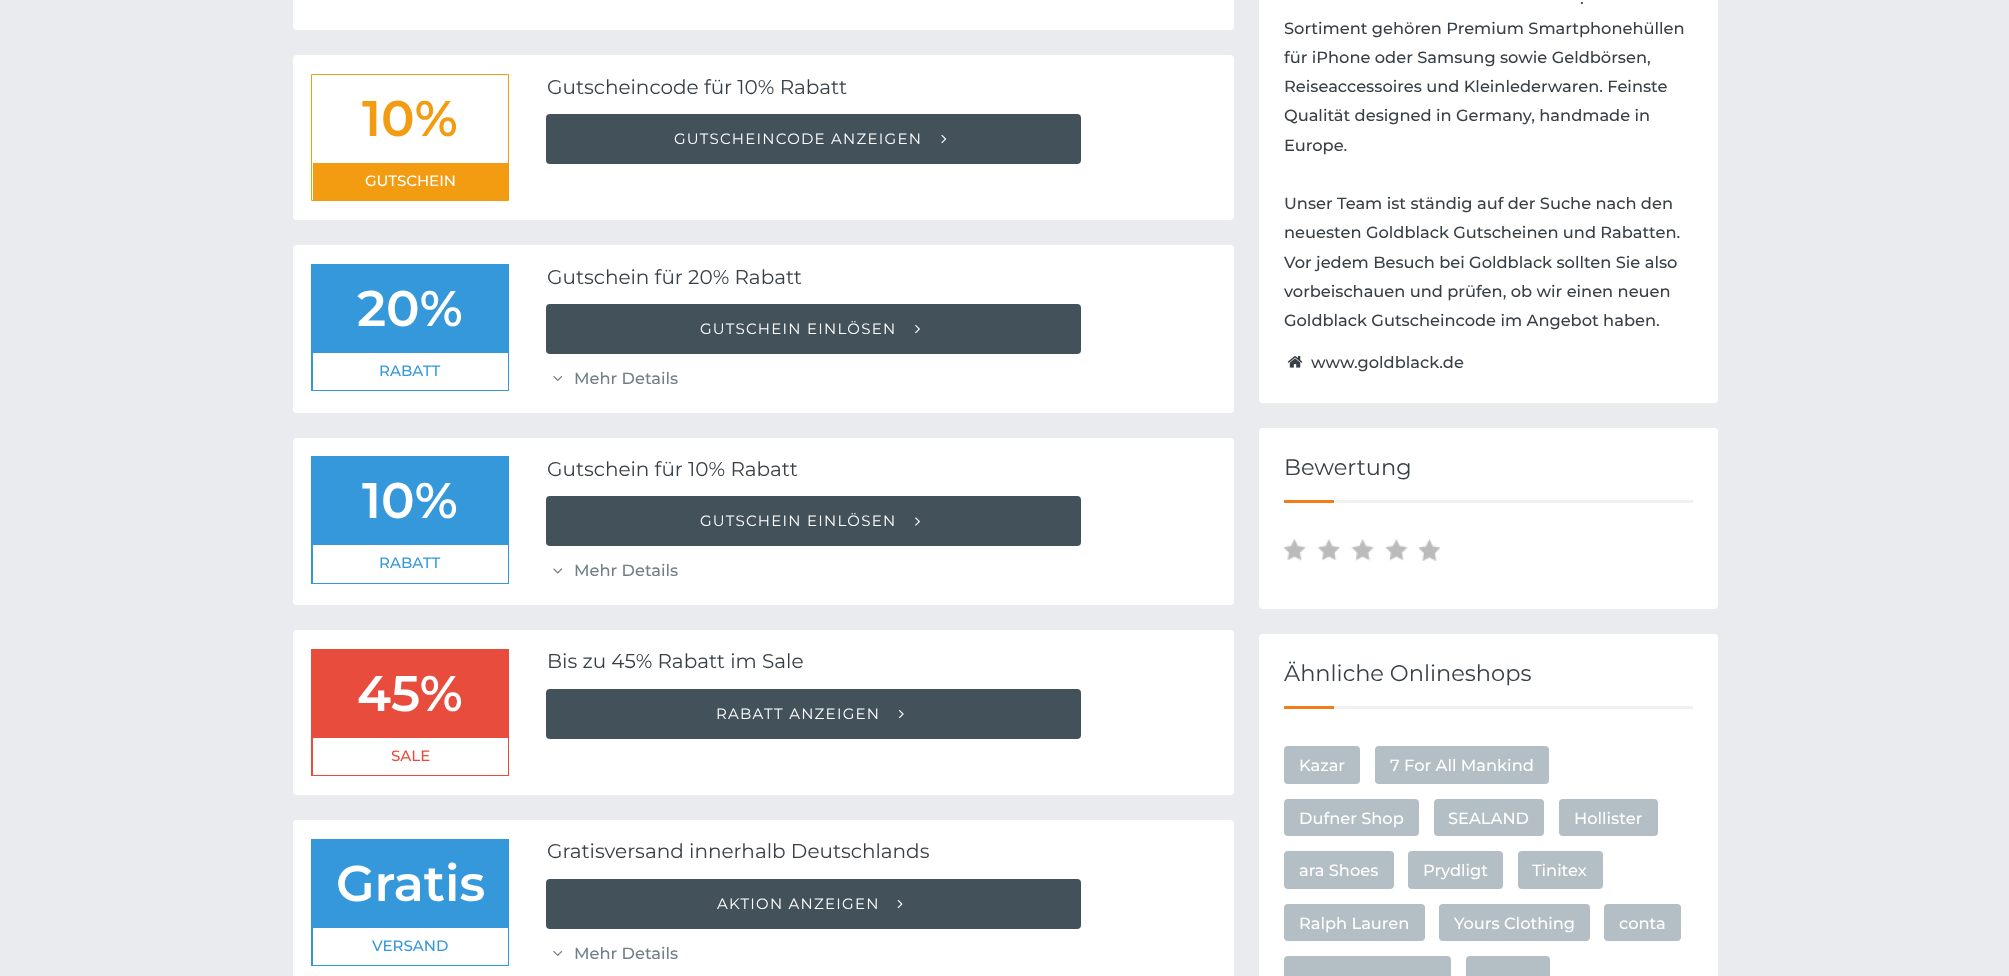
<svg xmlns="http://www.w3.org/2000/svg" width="2009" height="976">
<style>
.a{font:600 50px Montserrat;fill:#f39c12}
.b{font:500 15px Montserrat;fill:#fff}
.c{font:20px Montserrat;fill:#384047}
.d{font:15px Montserrat;letter-spacing:1.25px;fill:#fff}
.e{font:600 50px Montserrat;fill:#fff}
.f{font:500 15px Montserrat;fill:#3498db}
.g{font:500 16.25px Montserrat;fill:#717f86}
.h{font:500 15px Montserrat;fill:#e74c3c}
.i{font:500 16.25px Montserrat;fill:#384047}
.j{font:22.5px Montserrat;fill:#384047}
.k{font:500 16.25px Montserrat;fill:#fff}
</style>
<rect width="100%" height="100%" fill="#e9ebee"/>
<rect fill="#fff" x="293" y="-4" width="941" height="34" rx="4"/>
<rect fill="#fff" x="293" y="55" width="941" height="165" rx="4"/>
<path fill="none" stroke="#f39c12" d="M311.5 74.5h197v126H311.5z"/>
<path fill="#f39c12" d="M313 163h195v37H313z"/>
<rect fill="#43525a" x="546" y="114" width="535" height="50" rx="4"/>
<image href="1.png" x="941" y="134" width="6" height="10"/>
<rect fill="#fff" x="293" y="245" width="941" height="168" rx="4"/>
<path fill="#3498db" d="M311 264h198v127H311z"/>
<path fill="#fff" d="M313 353h195v37H313z"/>
<rect fill="#43525a" x="546" y="304" width="535" height="50" rx="4"/>
<image href="2.png" x="915" y="324" width="5" height="10"/>
<image href="3.png" x="553" y="375" width="10" height="7"/>
<rect fill="#fff" x="293" y="438" width="941" height="167" rx="4"/>
<path fill="#3498db" d="M311 456h198v128H311z"/>
<path fill="#fff" d="M313 545h195v38H313z"/>
<rect fill="#43525a" x="546" y="496" width="535" height="50" rx="4"/>
<image href="4.png" x="915" y="517" width="5" height="9"/>
<image href="5.png" x="553" y="568" width="10" height="6"/>
<rect fill="#fff" x="293" y="630" width="941" height="165" rx="4"/>
<path fill="#e74c3c" d="M311 649h198v127H311z"/>
<path fill="#fff" d="M313 738h195v37H313z"/>
<rect fill="#43525a" x="546" y="689" width="535" height="50" rx="4"/>
<image href="6.png" x="898" y="709" width="6" height="10"/>
<rect fill="#fff" x="293" y="820" width="941" height="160" rx="4"/>
<path fill="#3498db" d="M311 839h198v127H311z"/>
<path fill="#fff" d="M313 928h195v37H313z"/>
<rect fill="#43525a" x="546" y="879" width="535" height="50" rx="4"/>
<image href="7.png" x="897" y="899" width="6" height="10"/>
<image href="3.png" x="553" y="950" width="10" height="7"/>
<rect fill="#fff" x="1259" y="-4" width="459" height="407" rx="4"/>
<image href="8.png" x="1287" y="356" width="16" height="12"/>
<rect fill="#fff" x="1259" y="428" width="459" height="181" rx="4"/>
<path fill="#f17d19" d="M1284 500h50v3H1284z"/>
<path fill="#f1f1f1" d="M1334 500h359v3H1334z"/>
<image href="9.png" x="1283" y="539" width="158" height="22"/>
<rect fill="#fff" x="1259" y="634" width="459" height="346" rx="4"/>
<path fill="#f17d19" d="M1284 706h50v3H1284z"/>
<path fill="#f1f1f1" d="M1334 706h359v3H1334z"/>
<rect fill="#b3bfc5" x="1284" y="746" width="76" height="38" rx="4"/>
<rect fill="#b3bfc5" x="1375" y="746" width="174" height="38" rx="4"/>
<rect fill="#b3bfc5" x="1284" y="799" width="135" height="37" rx="4"/>
<rect fill="#b3bfc5" x="1434" y="799" width="110" height="37" rx="4"/>
<rect fill="#b3bfc5" x="1559" y="799" width="99" height="37" rx="4"/>
<rect fill="#b3bfc5" x="1284" y="851" width="110" height="38" rx="4"/>
<rect fill="#b3bfc5" x="1408" y="851" width="95" height="38" rx="4"/>
<rect fill="#b3bfc5" x="1518" y="851" width="85" height="38" rx="4"/>
<rect fill="#b3bfc5" x="1284" y="904" width="141" height="37" rx="4"/>
<rect fill="#b3bfc5" x="1439" y="904" width="151" height="37" rx="4"/>
<rect fill="#b3bfc5" x="1604" y="904" width="77" height="37" rx="4"/>
<rect fill="#b3bfc5" x="1284" y="956" width="167" height="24" rx="4"/>
<rect fill="#b3bfc5" x="1466" y="956" width="84" height="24" rx="4"/>
<text class="a" x="362" y="136">10%</text>
<text class="b" x="365" y="186">GUTSCHEIN</text>
<text class="c" x="547" y="94">Gutscheincode für 10% Rabatt</text>
<text class="d" x="674" y="144">GUTSCHEINCODE ANZEIGEN</text>
<text class="e" x="357" y="326">20%</text>
<text class="f" x="379" y="376">RABATT</text>
<text class="c" x="547" y="284">Gutschein für 20% Rabatt</text>
<text class="d" x="700" y="334">GUTSCHEIN EINLÖSEN</text>
<text class="g" x="574" y="384">Mehr Details</text>
<text class="e" x="362" y="518">10%</text>
<text class="f" x="379" y="568">RABATT</text>
<text class="c" x="547" y="476">Gutschein für 10% Rabatt</text>
<text class="d" x="700" y="526">GUTSCHEIN EINLÖSEN</text>
<text class="g" x="574" y="576">Mehr Details</text>
<text class="e" x="357" y="711">45%</text>
<text class="h" x="391" y="761">SALE</text>
<text class="c" x="547" y="668">Bis zu 45% Rabatt im Sale</text>
<text class="d" x="716" y="719">RABATT ANZEIGEN</text>
<text class="e" x="336" y="901">Gratis</text>
<text class="f" x="372" y="951">VERSAND</text>
<text class="c" x="547" y="858">Gratisversand innerhalb Deutschlands</text>
<text class="d" x="717" y="909">AKTION ANZEIGEN</text>
<text class="g" x="574" y="959">Mehr Details</text>
<text class="i" x="1580" y="4">.</text>
<text class="i" x="1284" y="34">Sortiment gehören Premium Smartphonehüllen</text>
<text class="i" x="1284" y="63">für iPhone oder Samsung sowie Geldbörsen,</text>
<text class="i" x="1284" y="92">Reiseaccessoires und Kleinlederwaren. Feinste</text>
<text class="i" x="1284" y="121">Qualität designed in Germany, handmade in</text>
<text class="i" x="1284" y="151">Europe.</text>
<text class="i" x="1284" y="209">Unser Team ist ständig auf der Suche nach den</text>
<text class="i" x="1284" y="238">neuesten Goldblack Gutscheinen und Rabatten.</text>
<text class="i" x="1284" y="268">Vor jedem Besuch bei Goldblack sollten Sie also</text>
<text class="i" x="1284" y="297">vorbeischauen und prüfen, ob wir einen neuen</text>
<text class="i" x="1284" y="326">Goldblack Gutscheincode im Angebot haben.</text>
<text class="i" x="1311" y="368">www.goldblack.de</text>
<text class="j" x="1284" y="475">Bewertung</text>
<text class="j" x="1284" y="681">Ähnliche Onlineshops</text>
<text class="k" x="1299" y="771">Kazar</text>
<text class="k" x="1390" y="771">7 For All Mankind</text>
<text class="k" x="1299" y="824">Dufner Shop</text>
<text class="k" x="1448" y="824">SEALAND</text>
<text class="k" x="1574" y="824">Hollister</text>
<text class="k" x="1299" y="876">ara Shoes</text>
<text class="k" x="1423" y="876">Prydligt</text>
<text class="k" x="1532" y="876">Tinitex</text>
<text class="k" x="1299" y="929">Ralph Lauren</text>
<text class="k" x="1454" y="929">Yours Clothing</text>
<text class="k" x="1619" y="929">conta</text>
</svg>
